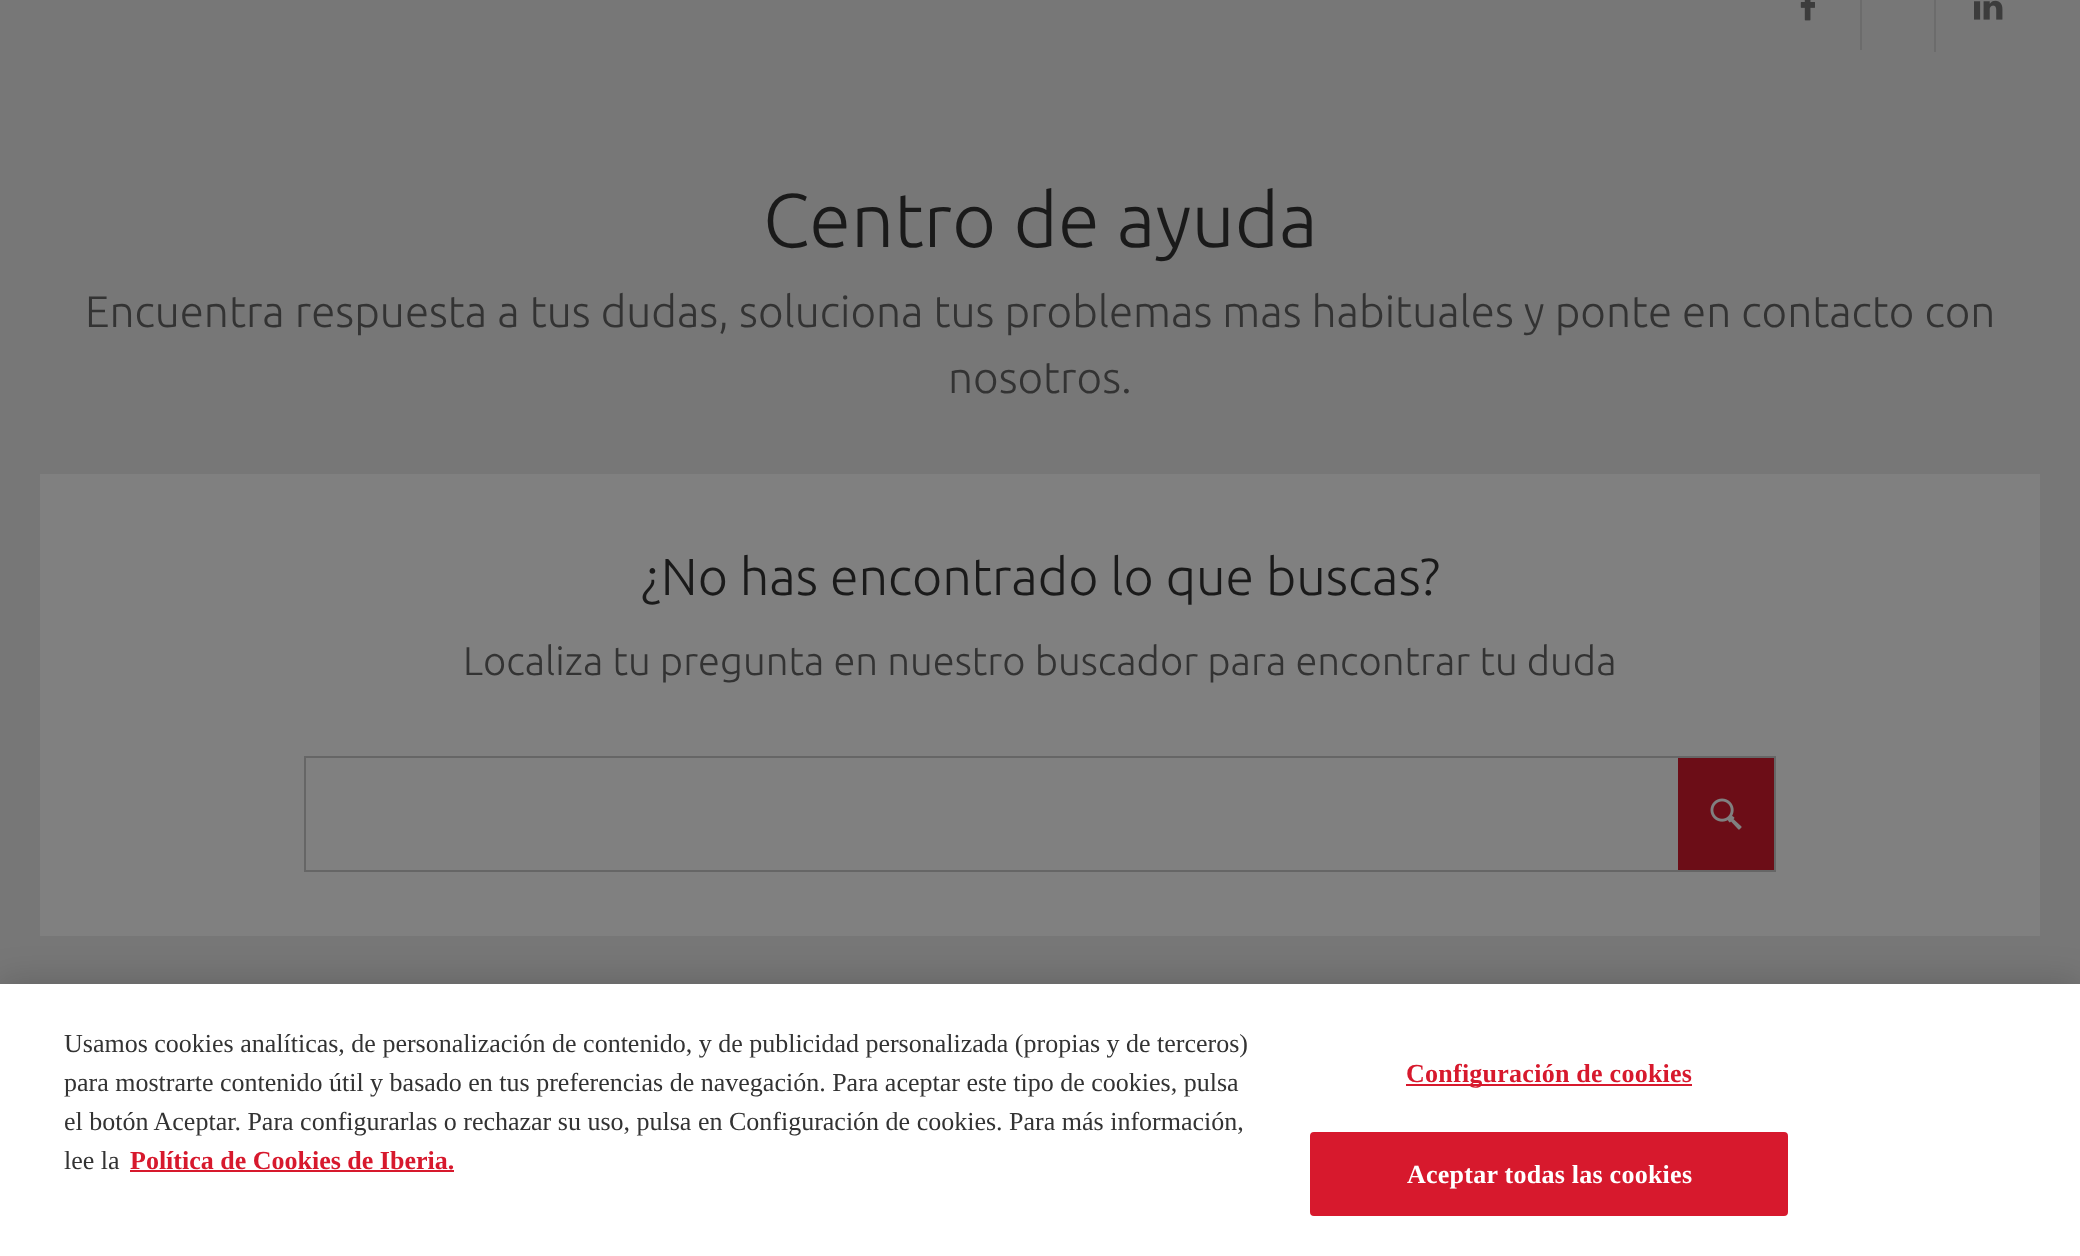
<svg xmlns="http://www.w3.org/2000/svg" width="2080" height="1256">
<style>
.a{font:300 76px Ubuntu;fill:#1a1a1a}
.b{font:300 44px Ubuntu;fill:#333}
.c{font:300 52px Ubuntu;fill:#1a1a1a}
.d{font:300 40px Ubuntu;fill:#333}
.e{font:26px Liberation Serif;fill:#333}
.f{font:bold 26px Liberation Serif;fill:#d7192d}
.g{font:bold 26px Liberation Serif;letter-spacing:0.25px;fill:#d7192d}
.h{font:bold 26px Liberation Serif;letter-spacing:0.25px;fill:#fff}
</style>
<rect width="100%" height="100%" fill="#777"/>
<image href="1.png" x="1800" y="0" width="15" height="21"/>
<path fill="#6c6c6c" d="M1860 0h2v50H1860z"/>
<path fill="#6c6c6c" d="M1934 0h2v52H1934z"/>
<image href="2.png" x="1974" y="0" width="29" height="20"/>
<path fill="#808080" d="M40 474h2000v462H40z"/>
<path fill="none" stroke="#666" stroke-width="2" d="M305 757h1470v114H305z"/>
<path fill="#6c0d17" d="M1678 758h96v112H1678z"/>
<image href="3.png" x="1710" y="798" width="32" height="32"/>
<path fill="#00000033" filter="blur(18px)" d="M0 984h2080v272H0z"/>
<path fill="#fff" d="M0 984h2080v272H0z"/>
<path fill="#d7192d" d="M130 1170h324v2H130z"/>
<path fill="#d7192d" d="M1406 1084h286v2H1406z"/>
<rect fill="#d7192d" stroke="#d7192d" stroke-width="2" x="1311" y="1133" width="476" height="82" rx="3"/>
<text class="a" x="763" y="247">Centro de ayuda</text>
<text class="b" x="85" y="327">Encuentra respuesta a tus dudas, soluciona tus problemas mas habituales y ponte en contacto con</text>
<text class="b" x="948" y="393">nosotros.</text>
<text class="c" x="641" y="595">¿No has encontrado lo que buscas?</text>
<text class="d" x="463" y="675">Localiza tu pregunta en nuestro buscador para encontrar tu duda</text>
<text class="e" x="64" y="1052">Usamos cookies analíticas, de personalización de contenido, y de publicidad personalizada (propias y de terceros)</text>
<text class="e" x="64" y="1091">para mostrarte contenido útil y basado en tus preferencias de navegación. Para aceptar este tipo de cookies, pulsa</text>
<text class="e" x="64" y="1130">el botón Aceptar. Para configurarlas o rechazar su uso, pulsa en Configuración de cookies. Para más información,</text>
<text class="e" x="64" y="1169">lee la</text>
<text class="f" x="130" y="1169">Política de Cookies de Iberia.</text>
<text class="g" x="1406" y="1082">Configuración de cookies</text>
<text class="h" x="1407" y="1183">Aceptar todas las cookies</text>
</svg>
